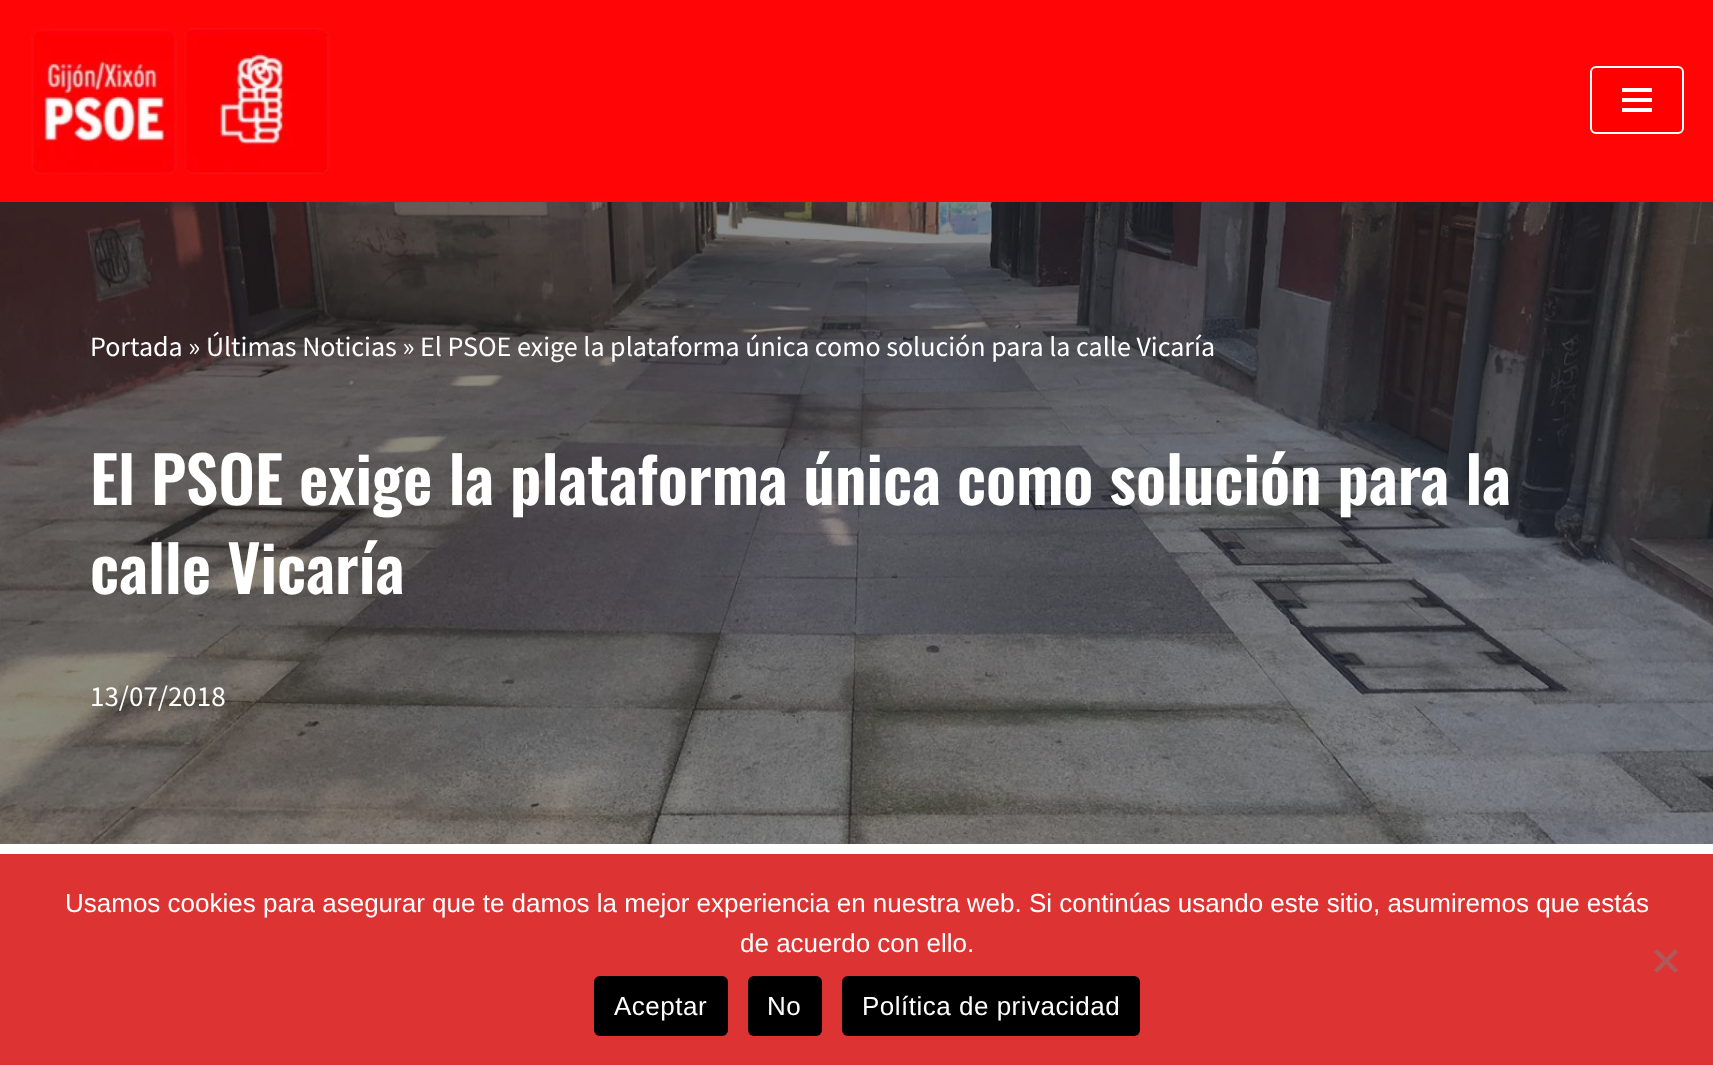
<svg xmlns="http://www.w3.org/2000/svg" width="1713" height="1065">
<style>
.a{font:28px Source Sans Pro;fill:#fff}
.b{font:600 64px Oswald;fill:#fff}
.c{font:29px Source Sans Pro;fill:#fff}
.d{font:26px Liberation Sans;fill:#fff}
.e{font:26px Liberation Sans;letter-spacing:0.5px;fill:#fff}
</style>
<rect width="100%" height="100%" fill="#fff"/>
<path fill="#ff0505" d="M0 0h1713v202H0z"/>
<image href="1.png" x="31" y="28" width="299" height="146"/>
<rect fill="#f00" stroke="#fff" stroke-width="2" x="1591" y="67" width="92" height="66" rx="5"/>
<path fill="#fff" d="M1622 88h30v4H1622z"/>
<path fill="#fff" d="M1622 98h30v4H1622z"/>
<path fill="#fff" d="M1622 108h30v4H1622z"/>
<image href="2.png" x="0" y="202" width="1713" height="642"/>
<path fill="#d33" d="M0 854h1713v211H0z"/>
<path fill="#af5a5a" d="M1675 949l3 3l-21 21l-3-3z"/>
<path fill="#af5a5a" d="M1654 952l3-3l21 21l-3 3z"/>
<rect fill="#000" x="594" y="976" width="134" height="60" rx="6"/>
<rect fill="#000" x="748" y="976" width="74" height="60" rx="6"/>
<rect fill="#000" x="842" y="976" width="298" height="60" rx="6"/>
<text class="a" x="90" y="356">Portada » Últimas Noticias » El PSOE exige la plataforma única como solución para la calle Vicaría</text>
<text class="b" x="90" y="505">El PSOE exige la plataforma única como solución para la</text>
<text class="b" x="90" y="594">calle Vicaría</text>
<text class="c" x="90" y="706">13/07/2018</text>
<text class="d" x="65" y="912">Usamos cookies para asegurar que te damos la mejor experiencia en nuestra web. Si continúas usando este sitio, asumiremos que estás</text>
<text class="d" x="740" y="952">de acuerdo con ello.</text>
<text class="e" x="614" y="1015">Aceptar</text>
<text class="e" x="767" y="1015">No</text>
<text class="e" x="862" y="1015">Política de privacidad</text>
</svg>
